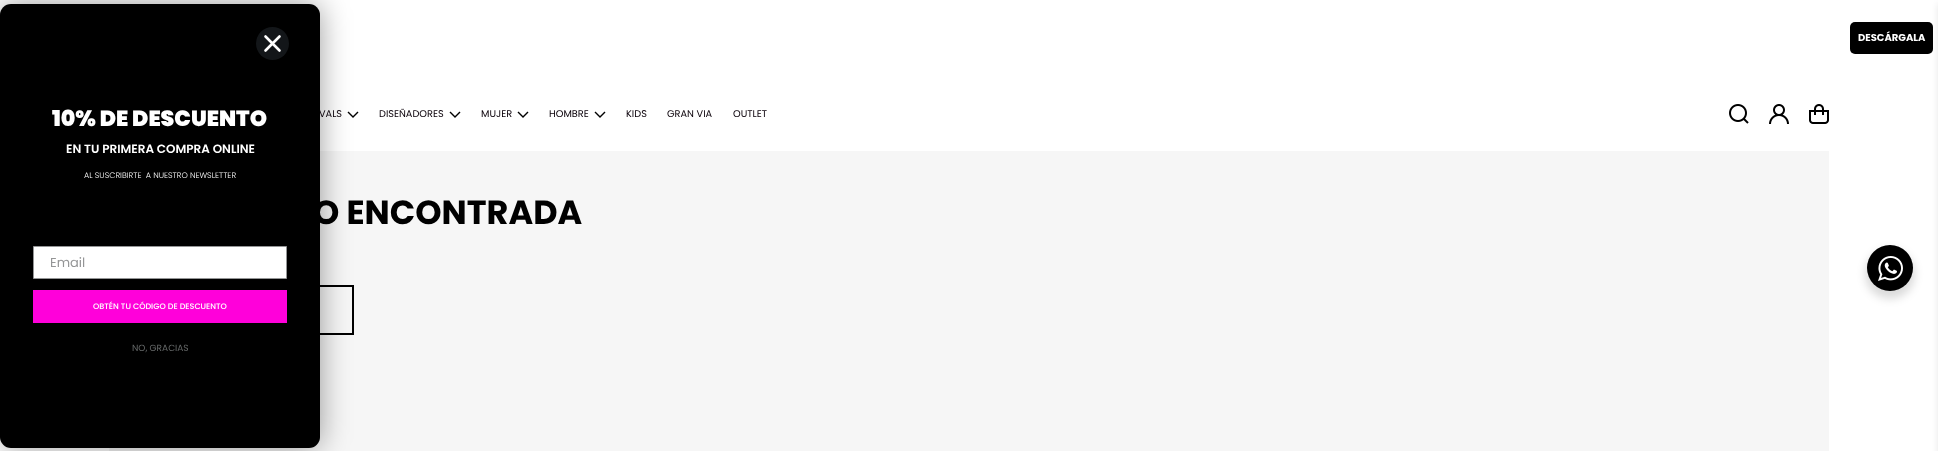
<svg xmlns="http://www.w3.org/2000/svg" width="1938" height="451">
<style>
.a{font:bold 10px Poppins;fill:#fff}
.b{font:9.75px Poppins;fill:#0a0109}
.c{font:900 22px Poppins;fill:#fff}
.d{font:600 12px Poppins;fill:#fff}
.e{font:300 8px Poppins;fill:#fff}
.f{font:13px Poppins;fill:#949596}
.g{font:500 8px Poppins;fill:#fff}
.h{font:9px Poppins;fill:#666969}
.i{font:bold 33.5px Poppins;fill:#000}
</style>
<rect width="100%" height="100%" fill="#fff"/>
<rect fill="#000" x="1850" y="22" width="83" height="32" rx="5"/>
<image href="1.png" x="347" y="111" width="12" height="7"/>
<image href="1.png" x="449" y="111" width="12" height="7"/>
<image href="1.png" x="517" y="111" width="12" height="7"/>
<image href="1.png" x="594" y="111" width="12" height="7"/>
<image href="2.png" x="1729" y="104" width="20" height="20"/>
<image href="3.png" x="1769" y="104" width="20" height="20"/>
<image href="4.png" x="1809" y="104" width="20" height="20"/>
<path fill="#0000001a" filter="blur(3px)" d="M1938 4h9v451H1938z"/>
<path fill="#f6f6f6" d="M109 151h1720v300H109z"/>
<path fill="none" stroke="#000" stroke-width="2" d="M150 286h203v48H150z"/>
<rect fill="#00000063" filter="blur(15px)" y="4" width="320" height="444" rx="11"/>
<rect fill="#00000024" filter="blur(4px)" x="1865" y="249" width="50" height="50" rx="25"/>
<circle fill="#000" cx="1890" cy="268" r="23"/>
<image href="5.png" x="1878" y="256" width="25" height="25"/>
<text class="a" x="1858" y="41">DESCÁRGALA</text>
<text class="b" x="319" y="117">VALS</text>
<text class="b" x="379" y="117">DISEÑADORES</text>
<text class="b" x="481" y="117">MUJER</text>
<text class="b" x="549" y="117">HOMBRE</text>
<text class="b" x="626" y="117">KIDS</text>
<text class="b" x="667" y="117">GRAN VIA</text>
<text class="b" x="733" y="117">OUTLET</text>
<rect fill="#000" y="4" width="320" height="444" rx="11"/>
<circle fill="#131619" cx="272.5" cy="43.5" r="16.5"/>
<path fill="none" stroke="#fff" stroke-width="2.6" stroke-linecap="round" stroke-linejoin="round" d="M265.5 36.5l14 14m-14 0l14-14z"/>
<text class="c" x="52" y="126">10% DE DESCUENTO</text>
<text class="d" x="66" y="153">EN TU PRIMERA COMPRA ONLINE</text>
<text class="e" xml:space="preserve" x="84" y="178">AL SUSCRIBIRTE  A NUESTRO NEWSLETTER</text>
<path fill="#fff" stroke="#949596" d="M33.5 246.5h253v32H33.5z"/>
<text class="f" x="50" y="267">Email</text>
<path fill="#ff00da" d="M33 290h254v33H33z"/>
<text class="g" x="93" y="309">OBTÉN TU CÓDIGO DE DESCUENTO</text>
<text class="h" x="132" y="351">NO, GRACIAS</text>
<text class="i" x="313" y="224">O ENCONTRADA</text>
</svg>
